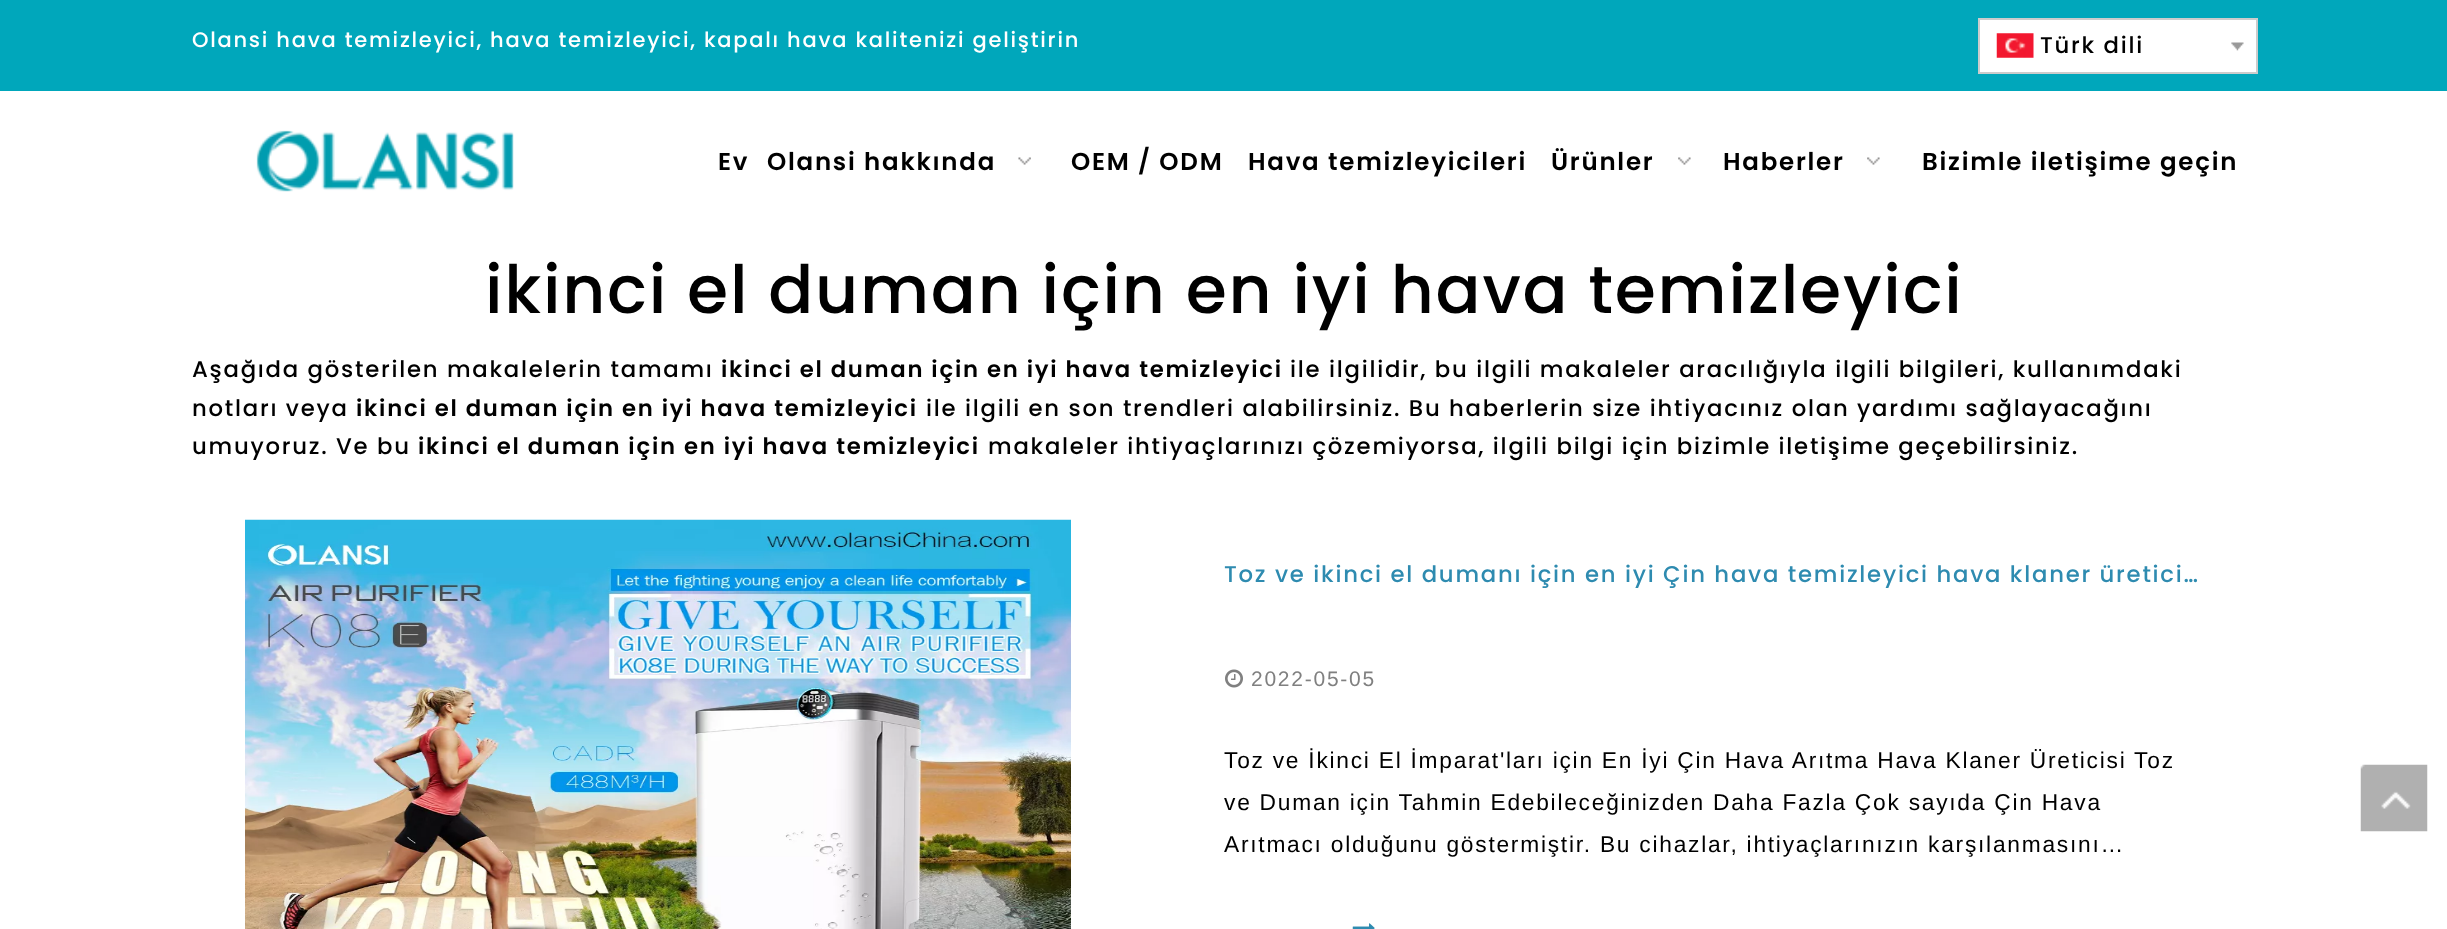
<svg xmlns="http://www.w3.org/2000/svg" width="2447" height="929">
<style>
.a{font:500 21px Poppins;letter-spacing:1.75px;fill:#fff}
.b{font:500 22.75px Poppins;letter-spacing:1.75px;fill:#000}
.c{font:600 24.5px Poppins;letter-spacing:1.75px;fill:#000}
.d{font:500 66.5px Poppins;letter-spacing:1.75px;fill:#000}
.e{font:600 22.75px Poppins;letter-spacing:1.75px;fill:#000}
.f{font:500 22.75px Poppins;letter-spacing:1.75px;fill:#2e8bb0}
.g{font:21px Liberation Sans;letter-spacing:1.75px;fill:#808080}
.h{font:22.75px Liberation Sans;letter-spacing:1.75px;fill:#000}
</style>
<rect width="100%" height="100%" fill="#fff"/>
<path fill="#00a7bb" d="M0 0h2447v91H0z"/>
<path fill="#fff" stroke="#ccc" stroke-width="2" d="M1979 19h278v54H1979z"/>
<image href="1.png" x="1996" y="33" width="38" height="25"/>
<image href="2.png" x="2231" y="42" width="13" height="9"/>
<image href="3.png" x="256" y="130" width="258" height="62"/>
<image href="4.png" x="1018" y="157" width="13" height="8"/>
<image href="5.png" x="1678" y="157" width="13" height="8"/>
<image href="6.png" x="1867" y="157" width="13" height="8"/>
<image href="7.png" x="245" y="519" width="826" height="410"/>
<image href="8.png" x="1225" y="669" width="18" height="19"/>
<image href="9.png" x="1352" y="923" width="23" height="6"/>
<image href="10.png" x="2360" y="764" width="68" height="68"/>
<text class="a" x="192" y="47">Olansi hava temizleyici, hava temizleyici, kapalı hava kalitenizi geliştirin</text>
<text class="b" x="2040" y="53">Türk dili</text>
<text class="c" x="718" y="170">Ev</text>
<text class="c" x="767" y="170">Olansi hakkında</text>
<text class="c" x="1071" y="170">OEM / ODM</text>
<text class="c" x="1248" y="170">Hava temizleyicileri</text>
<text class="c" x="1551" y="170">Ürünler</text>
<text class="c" x="1723" y="170">Haberler</text>
<text class="c" x="1922" y="170">Bizimle iletişime geçin</text>
<text class="d" x="485" y="313">ikinci el duman için en iyi hava temizleyici</text>
<text class="b" x="192" y="377">Aşağıda gösterilen makalelerin tamamı</text>
<text class="e" x="721" y="377">ikinci el duman için en iyi hava temizleyici</text>
<text class="b" x="1290" y="377">ile ilgilidir, bu ilgili makaleler aracılığıyla ilgili bilgileri, kullanımdaki</text>
<text class="b" x="192" y="416">notları veya</text>
<text class="e" x="356" y="416">ikinci el duman için en iyi hava temizleyici</text>
<text class="b" x="926" y="416">ile ilgili en son trendleri alabilirsiniz. Bu haberlerin size ihtiyacınız olan yardımı sağlayacağını</text>
<text class="b" x="192" y="454">umuyoruz. Ve bu</text>
<text class="e" x="418" y="454">ikinci el duman için en iyi hava temizleyici</text>
<text class="b" x="988" y="454">makaleler ihtiyaçlarınızı çözemiyorsa, ilgili bilgi için bizimle iletişime geçebilirsiniz.</text>
<text class="f" x="1224" y="582">Toz ve ikinci el dumanı için en iyi Çin hava temizleyici hava klaner üretici…</text>
<text class="g" x="1251" y="686">2022-05-05</text>
<text class="h" x="1224" y="768">Toz ve İkinci El İmparat'ları için En İyi Çin Hava Arıtma Hava Klaner Üreticisi Toz</text>
<text class="h" x="1224" y="810">ve Duman için Tahmin Edebileceğinizden Daha Fazla Çok sayıda Çin Hava</text>
<text class="h" x="1224" y="852">Arıtmacı olduğunu göstermiştir. Bu cihazlar, ihtiyaçlarınızın karşılanmasını…</text>
</svg>
